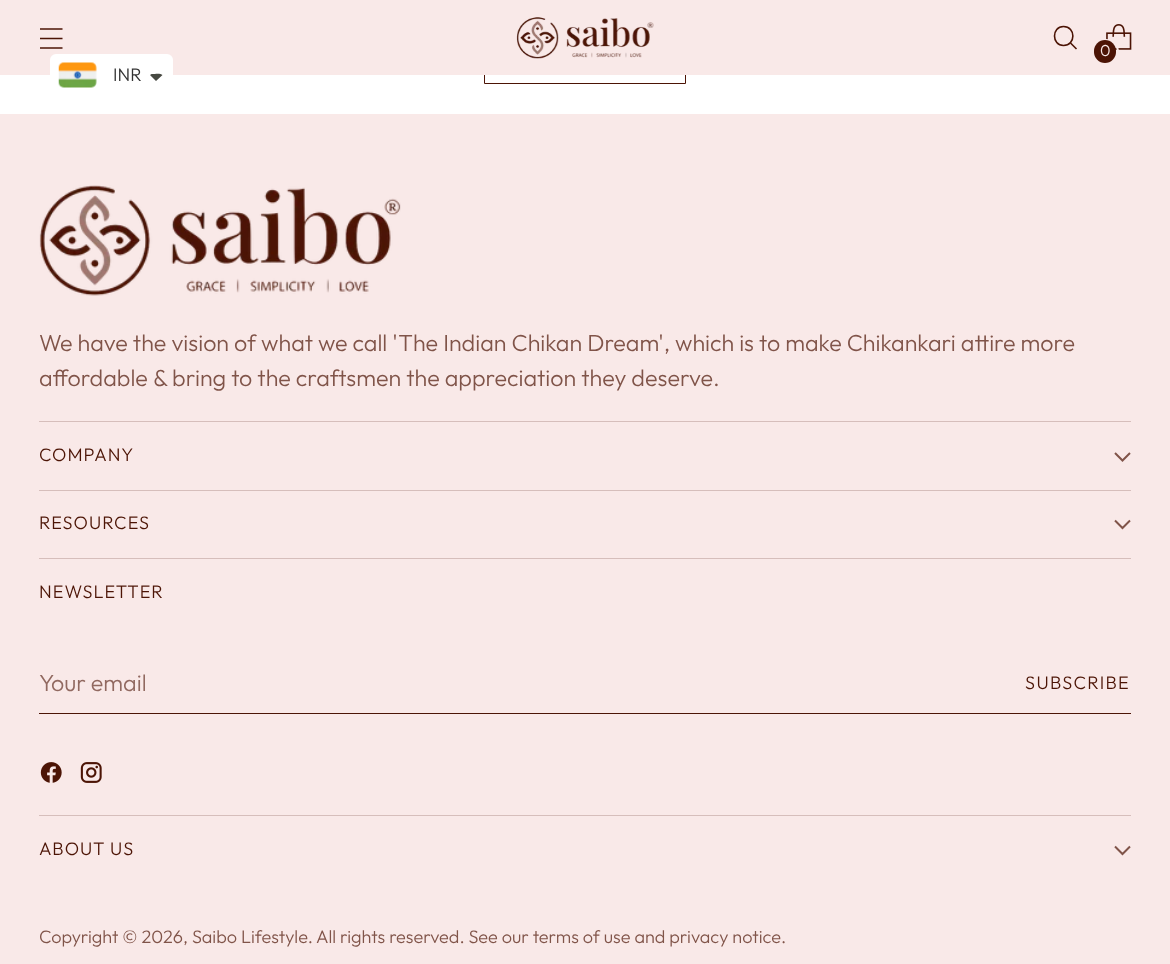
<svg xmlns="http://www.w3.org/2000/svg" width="1170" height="964">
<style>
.a{font:300 16px Outfit;fill:#f9e9e8}
.b{font:300 23.3px Outfit;fill:#805449}
.c{font:300 18.1px Outfit;letter-spacing:1px;fill:#4c1405}
.d{font:300 23.3px Outfit;fill:#916960}
.e{font:300 18.1px Outfit;letter-spacing:1.25px;fill:#4c1405}
.f{font:300 18.1px Outfit;fill:#805449}
.g{font:300 18px Outfit;fill:#333}
</style>
<rect width="100%" height="100%" fill="#fff"/>
<path fill="none" stroke="#4c1405" d="M484.5 24.5h201v59H484.5z"/>
<path fill="#f9e9e8" d="M0 0h1170v75H0z"/>
<path fill="none" stroke="#4c1405" stroke-width="1.6" d="M40 38.5h22.5m-22.5-9.5h22.5m-22.5 19h22.5"/>
<image href="1.png" x="516" y="17" width="138" height="42"/>
<path fill="none" stroke="#4c1405" stroke-width="1.6" stroke-linecap="round" d="M1063.5 45.5c12.5 0 12.5-19 0-19c-12 0-12 19 0 19z"/>
<path fill="none" stroke="#4c1405" stroke-width="1.6" d="M1070.5 43l6 6"/>
<image href="2.png" x="1106" y="24" width="26" height="26"/>
<circle fill="none" stroke="#f9e9e8" stroke-width="2" cx="1106" cy="52" r="12"/>
<rect fill="#4c1405" x="1094" y="40" width="22" height="23" rx="11"/>
<path fill="#f9e9e8" d="M0 114h1170v850H0z"/>
<path fill="#d6bebb" d="M39 421h1092v1H39z"/>
<image href="3.png" x="39" y="185" width="362" height="111"/>
<path fill="#d6bebb" d="M39 490h1092v1H39z"/>
<path fill="none" stroke="#805449" stroke-width="2" d="M1115 453l7.5 7.5l7.5-7.5"/>
<path fill="#d6bebb" d="M39 558h1092v1H39z"/>
<path fill="none" stroke="#805449" stroke-width="2" d="M1115 520.5l7.5 7.5l7.5-7.5"/>
<path fill="#d6bebb" d="M39 815h1092v1H39z"/>
<path fill="#4c1405" d="M39 713h1092v1H39z"/>
<image href="4.png" x="40" y="762" width="22" height="21"/>
<image href="5.png" x="80" y="762" width="22" height="21"/>
<path fill="none" stroke="#805449" stroke-width="2" d="M1115 846.5l7.5 7.5l7.5-7.5"/>
<rect fill="#fff" x="50" y="54" width="123" height="42" rx="6"/>
<image href="6.png" x="58" y="62" width="39" height="26"/>
<path fill="#474942" d="M152.5 74c2.5 0 8-1 10 1l-6.5 6l-6-6c.5-.5 1.5-1 2.5-1z"/>
<text class="a" x="1100" y="56">0</text>
<text class="b" x="39" y="351">We have the vision of what we call 'The Indian Chikan Dream', which is to make Chikankari attire more</text>
<text class="b" x="39" y="386">affordable &amp; bring to the craftsmen the appreciation they deserve.</text>
<text class="c" x="39" y="461">COMPANY</text>
<text class="c" x="39" y="529">RESOURCES</text>
<text class="c" x="39" y="598">NEWSLETTER</text>
<text class="d" x="39" y="691">Your email</text>
<text class="e" x="1025" y="689">SUBSCRIBE</text>
<text class="c" x="39" y="855">ABOUT US</text>
<text class="f" x="39" y="943">Copyright © 2026, Saibo Lifestyle.</text>
<text class="f" x="316" y="943">All rights reserved. See our terms of use and privacy notice.</text>
<text class="g" x="113" y="81">INR</text>
</svg>
